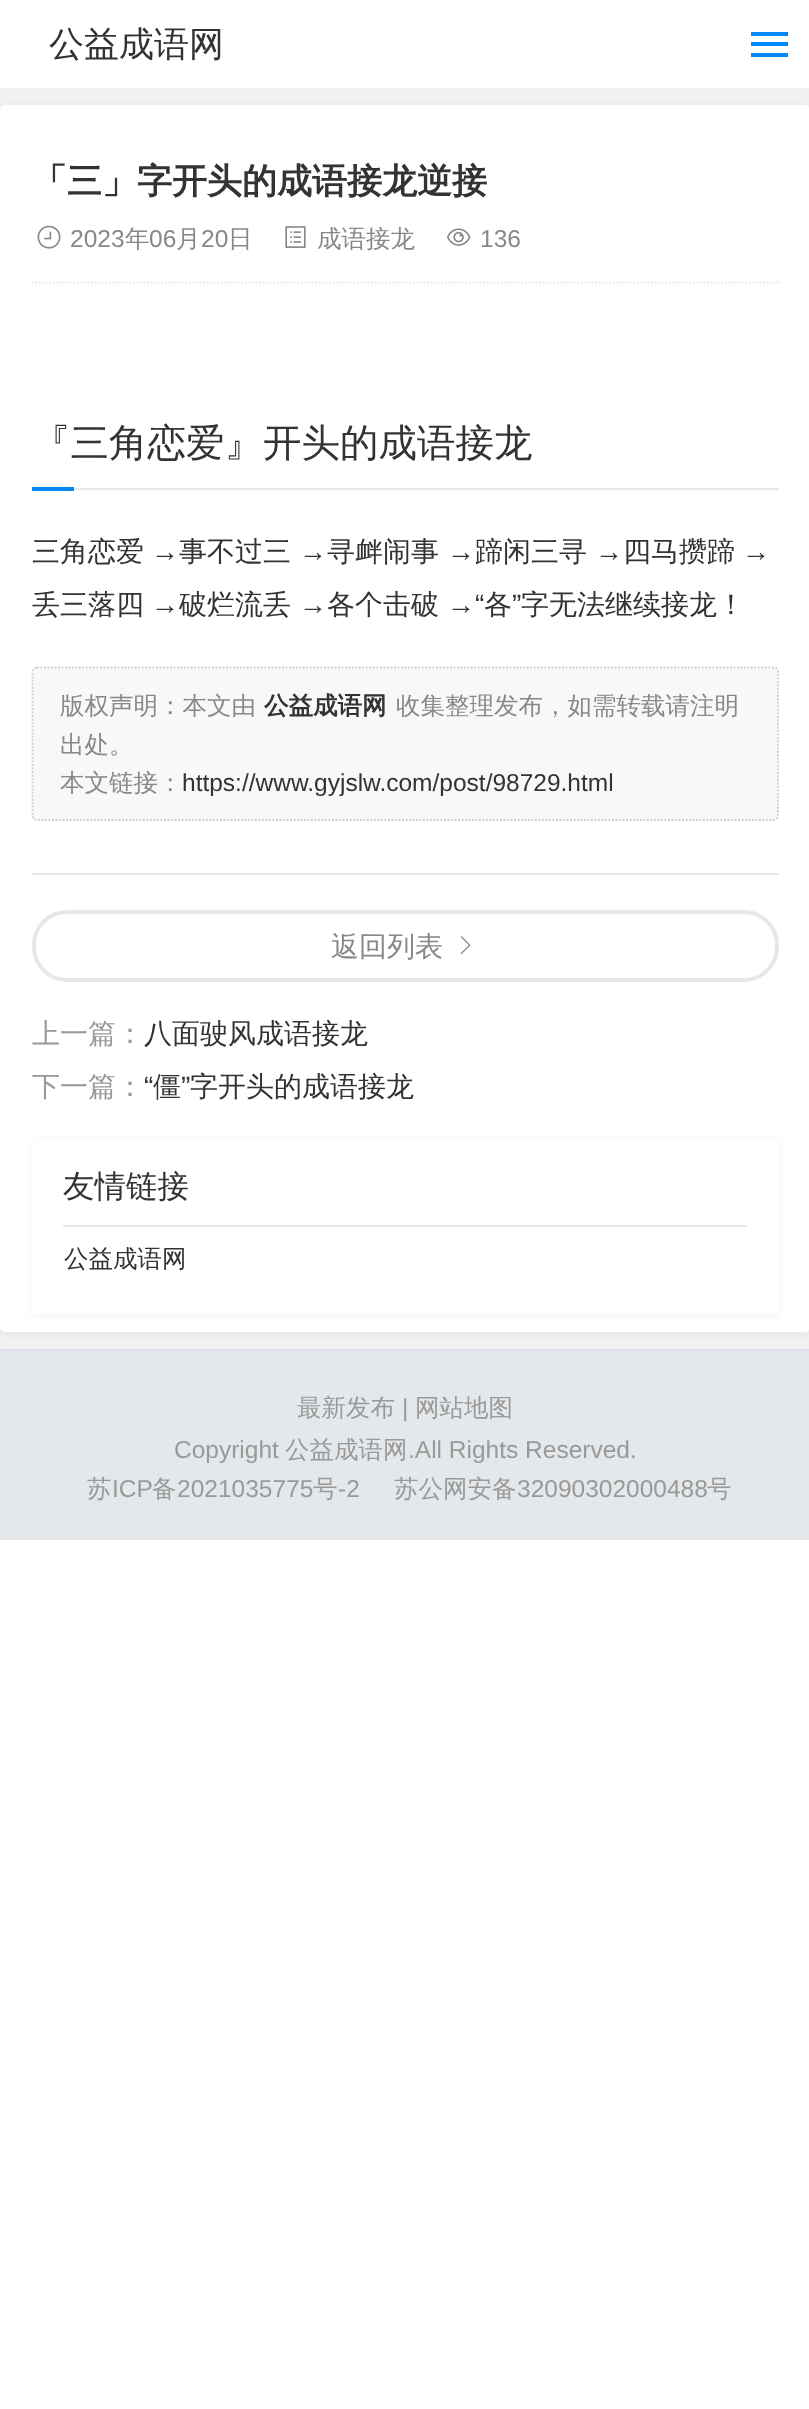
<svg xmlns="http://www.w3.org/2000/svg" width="809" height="2409">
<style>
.a{font:500 35px WenQuanYi Zen Hei;fill:#333}
.b{font:bold 35px WenQuanYi Zen Hei;fill:#333}
.c{font:24.5px Liberation Sans;fill:#888}
.d{font:500 24.5px WenQuanYi Zen Hei;fill:#888}
.e{font:500 38.5px WenQuanYi Zen Hei;fill:#333}
.f{font:500 28px WenQuanYi Zen Hei;fill:#333}
.g{font:28px Liberation Sans;fill:#333}
.h{font:bold 24.5px WenQuanYi Zen Hei;fill:#333}
.i{font:24.5px Liberation Sans;fill:#333}
.j{font:500 28px WenQuanYi Zen Hei;fill:#888}
.k{font:500 28px WenQuanYi Zen Hei;fill:#999}
.l{font:500 31.5px WenQuanYi Zen Hei;fill:#333}
.m{font:500 24.5px WenQuanYi Zen Hei;fill:#333}
.n{font:500 24.5px WenQuanYi Zen Hei;fill:#999}
.o{font:24.5px Liberation Sans;fill:#999}
</style>
<rect width="100%" height="100%" fill="#fff"/>
<path fill="#f1f1f1" d="M0 88h809v1261H0z"/>
<path fill="#0188fb" d="M751 32h37v4H751z"/>
<path fill="#0188fb" d="M751 42h37v4H751z"/>
<path fill="#0188fb" d="M751 53h37v4H751z"/>
<rect fill="#0000000d" filter="blur(4.5px)" y="107" width="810" height="1227" rx="5"/>
<rect fill="#fff" y="105" width="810" height="1227" rx="5"/>
<path fill="#e4e8eb" d="M32 873h747v2H32z"/>
<image href="1.png" x="37" y="225" width="24" height="24"/>
<image href="2.png" x="285" y="226" width="21" height="22"/>
<image href="3.png" x="447" y="228" width="24" height="18"/>
<path fill="none" stroke="#e4e8eb" stroke-width="1.8" stroke-dasharray="1.75 1.75" d="M31.5 282.5h747.5"/>
<path fill="#e4e8eb" d="M74 488h705v2H74z"/>
<path fill="#0188fb" d="M32 487h42v4H32z"/>
<rect fill="#f8f8f8" x="32" y="667" width="747" height="154" rx="5"/>
<path fill="none" stroke="#ccc" stroke-width="1.8" stroke-dasharray="1.75 1.75" d="M37 667.5h736.5c2.5 0 4.5 2 4.5 4.5v143.5c0 2.5-2 4.5-4.5 4.5h-736.5c-2.5 0-4.5-2-4.5-4.5v-143.5c0-2.5 2-4.5 4.5-4.5z"/>
<rect fill="none" stroke="#e4e8eb" stroke-width="4" x="34" y="912" width="743" height="68" rx="33"/>
<image href="4.png" x="460" y="936" width="11" height="19"/>
<rect fill="#0000000d" filter="blur(4.5px)" x="32" y="1141" width="747" height="175" rx="5"/>
<rect fill="#fff" x="32" y="1139" width="747" height="175" rx="5"/>
<path fill="#e4e8eb" d="M63 1225h684v2H63z"/>
<path fill="#e4e8eb" d="M0 1351h809v189H0z"/>
<path fill="#dbe0e8" d="M0 1349h809v2H0z"/>
<text class="a" x="49" y="56">公益成语网</text>
<text class="b" x="32" y="193">「三」字开头的成语接龙逆接</text>
<text class="c" x="70" y="247">2023</text>
<text class="d" x="125" y="247">年</text>
<text class="c" x="149" y="247">06</text>
<text class="d" x="176" y="247">月</text>
<text class="c" x="201" y="247">20</text>
<text class="d" x="228" y="247">日</text>
<text class="d" x="317" y="247">成语接龙</text>
<text class="c" x="480" y="247">136</text>
<text class="e" x="32" y="456">『三角恋爱』开头的成语接龙</text>
<text class="f" x="32" y="561">三角恋爱</text>
<text class="g" x="151" y="561">→</text>
<text class="f" x="179" y="561">事不过三</text>
<text class="g" x="299" y="561">→</text>
<text class="f" x="327" y="561">寻衅闹事</text>
<text class="g" x="447" y="561">→</text>
<text class="f" x="475" y="561">蹄闲三寻</text>
<text class="g" x="595" y="561">→</text>
<text class="f" x="623" y="561">四马攒蹄</text>
<text class="g" x="742" y="561">→</text>
<text class="f" x="32" y="614">丢三落四</text>
<text class="f" x="179" y="614">破烂流丢</text>
<text class="f" x="327" y="614">各个击破</text>
<text class="g" x="447" y="614">→“</text>
<text class="f" x="484" y="614">各</text>
<text class="g" x="512" y="614">”</text>
<text class="f" x="521" y="614">字无法继续接龙！</text>
<text class="g" x="151" y="614">→</text>
<text class="g" x="299" y="614">→</text>
<text class="d" x="60" y="714">版权声明：本文由</text>
<text class="h" x="264" y="714">公益成语网</text>
<text class="d" x="396" y="714">收集整理发布，如需转载请注明</text>
<text class="d" x="60" y="753">出处。</text>
<text class="d" x="60" y="791">本文链接：</text>
<text class="i" x="182" y="791">https://www.gyjslw.com/post/98729.html</text>
<text class="j" x="331" y="956">返回列表</text>
<text class="k" x="32" y="1043">上一篇：</text>
<text class="f" x="144" y="1043">八面驶风成语接龙</text>
<text class="k" x="32" y="1096">下一篇：</text>
<text class="g" x="144" y="1096">“</text>
<text class="f" x="153" y="1096">僵</text>
<text class="g" x="181" y="1096">”</text>
<text class="f" x="190" y="1096">字开头的成语接龙</text>
<text class="l" x="63" y="1197">友情链接</text>
<text class="m" x="64" y="1267">公益成语网</text>
<text class="n" x="297" y="1416">最新发布</text>
<text class="o" x="402" y="1416">|</text>
<text class="n" x="415" y="1416">网站地图</text>
<text class="o" x="174" y="1458">Copyright</text>
<text class="n" x="285" y="1458">公益成语网</text>
<text class="o" x="408" y="1458">.All Rights Reserved.</text>
<text class="n" x="87" y="1497">苏</text>
<text class="o" x="112" y="1497">ICP</text>
<text class="n" x="152" y="1497">备</text>
<text class="o" x="177" y="1497">2021035775</text>
<text class="n" x="313" y="1497">号</text>
<text class="o" x="338" y="1497">-2</text>
<text class="n" x="394" y="1497">苏公网安备</text>
<text class="o" x="517" y="1497">32090302000488</text>
<text class="n" x="707" y="1497">号</text>
</svg>
